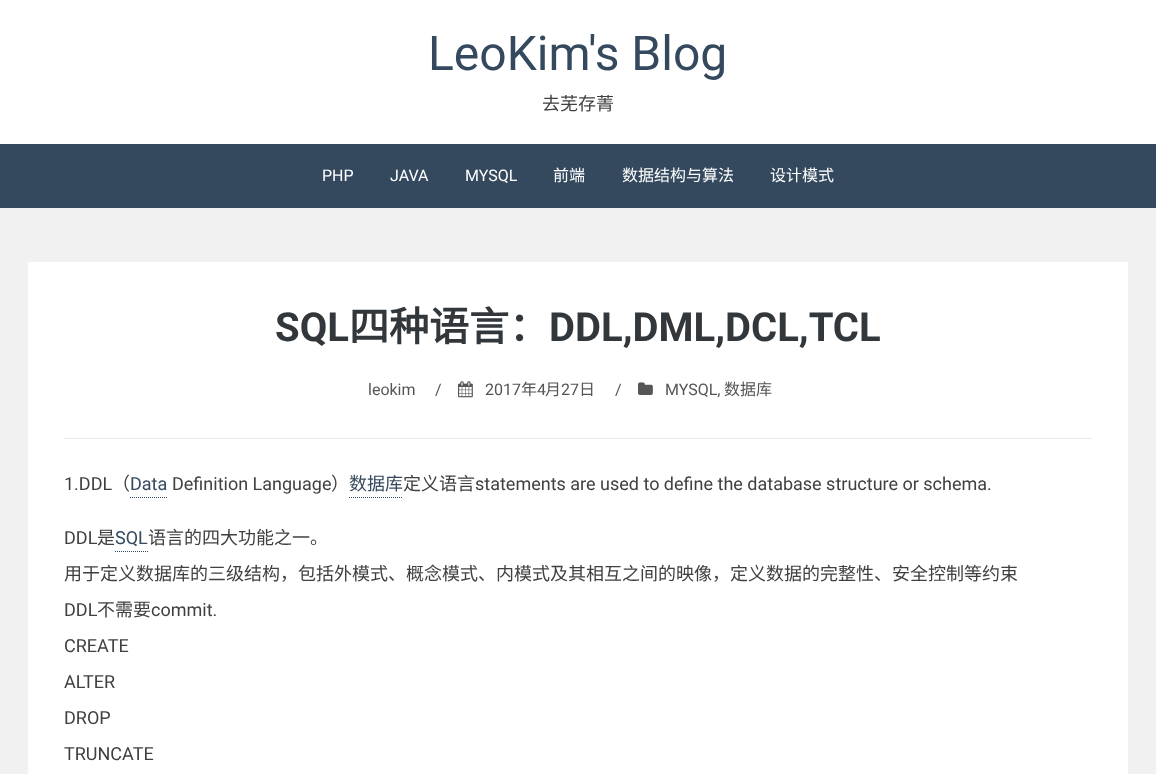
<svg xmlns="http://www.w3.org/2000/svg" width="1156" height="774">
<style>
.a{font:48px Roboto;fill:#34495e}
.b{font:18px Noto Sans CJK SC;fill:#404040}
.c{font:16px Roboto;fill:#fff}
.d{font:16px Noto Sans CJK SC;fill:#fff}
.e{font:bold 40px Roboto;fill:#32373c}
.f{font:bold 40px Noto Sans CJK SC;fill:#32373c}
.g{font:16px Roboto;fill:#555}
.h{font:16px Noto Sans CJK SC;fill:#555}
.i{font:18px Roboto;fill:#404040}
.j{font:18px Roboto;fill:#34495e}
.k{font:18px Noto Sans CJK SC;fill:#34495e}
</style>
<rect width="100%" height="100%" fill="#f1f1f1"/>
<path fill="#fff" d="M0 0h1156v144H0z"/>
<path fill="#34495e" d="M0 144h1156v64H0z"/>
<path fill="#fff" d="M28 262h1100v512H28z"/>
<path fill="#eaeaea" d="M64 438h1028v1H64z"/>
<image href="1.png" x="458" y="381" width="15" height="17"/>
<image href="2.png" x="638" y="382" width="15" height="13"/>
<path fill="none" stroke="#34495e" stroke-dasharray="1 1" d="M130 497.5h37"/>
<path fill="none" stroke="#34495e" stroke-dasharray="1 1" d="M349 497.5h54"/>
<path fill="none" stroke="#34495e" stroke-dasharray="1 1" d="M115 551.5h33"/>
<text class="a" x="428" y="70">LeoKim's Blog</text>
<text class="b" x="542" y="110">去芜存菁</text>
<text class="c" x="322" y="181">PHP</text>
<text class="c" x="390" y="181">JAVA</text>
<text class="c" x="465" y="181">MYSQL</text>
<text class="d" x="553" y="181">前端</text>
<text class="d" x="622" y="181">数据结构与算法</text>
<text class="d" x="770" y="181">设计模式</text>
<text class="e" x="275" y="341">SQL</text>
<text class="f" x="349" y="341">四种语言：</text>
<text class="e" x="549" y="341">DDL,DML,DCL,TCL</text>
<text class="g" x="368" y="395">leokim</text>
<text class="g" x="435" y="395">/</text>
<text class="g" x="485" y="395">2017</text>
<text class="h" x="521" y="395">年</text>
<text class="g" x="537" y="395">4</text>
<text class="h" x="545" y="395">月</text>
<text class="g" x="561" y="395">27</text>
<text class="h" x="579" y="395">日</text>
<text class="g" x="615" y="395">/</text>
<text class="g" x="665" y="395">MYSQL,</text>
<text class="h" x="724" y="395">数据库</text>
<text class="i" x="64" y="490">1.DDL</text>
<text class="b" x="112" y="490">（</text>
<text class="j" x="130" y="490">Data</text>
<text class="i" x="172" y="490">Definition Language</text>
<text class="b" x="331" y="490">）</text>
<text class="k" x="349" y="490">数据库</text>
<text class="b" x="403" y="490">定义语言</text>
<text class="i" x="475" y="490">statements are used to define the database structure or schema.</text>
<text class="i" x="64" y="544">DDL</text>
<text class="b" x="97" y="544">是</text>
<text class="j" x="115" y="544">SQL</text>
<text class="b" x="148" y="544">语言的四大功能之一。</text>
<text class="b" x="64" y="580">用于定义数据库的三级结构，包括外模式、概念模式、内模式及其相互之间的映像，定义数据的完整性、安全控制等约束</text>
<text class="i" x="64" y="616">DDL</text>
<text class="b" x="97" y="616">不需要</text>
<text class="i" x="151" y="616">commit.</text>
<text class="i" x="64" y="652">CREATE</text>
<text class="i" x="64" y="688">ALTER</text>
<text class="i" x="64" y="724">DROP</text>
<text class="i" x="64" y="760">TRUNCATE</text>
</svg>
